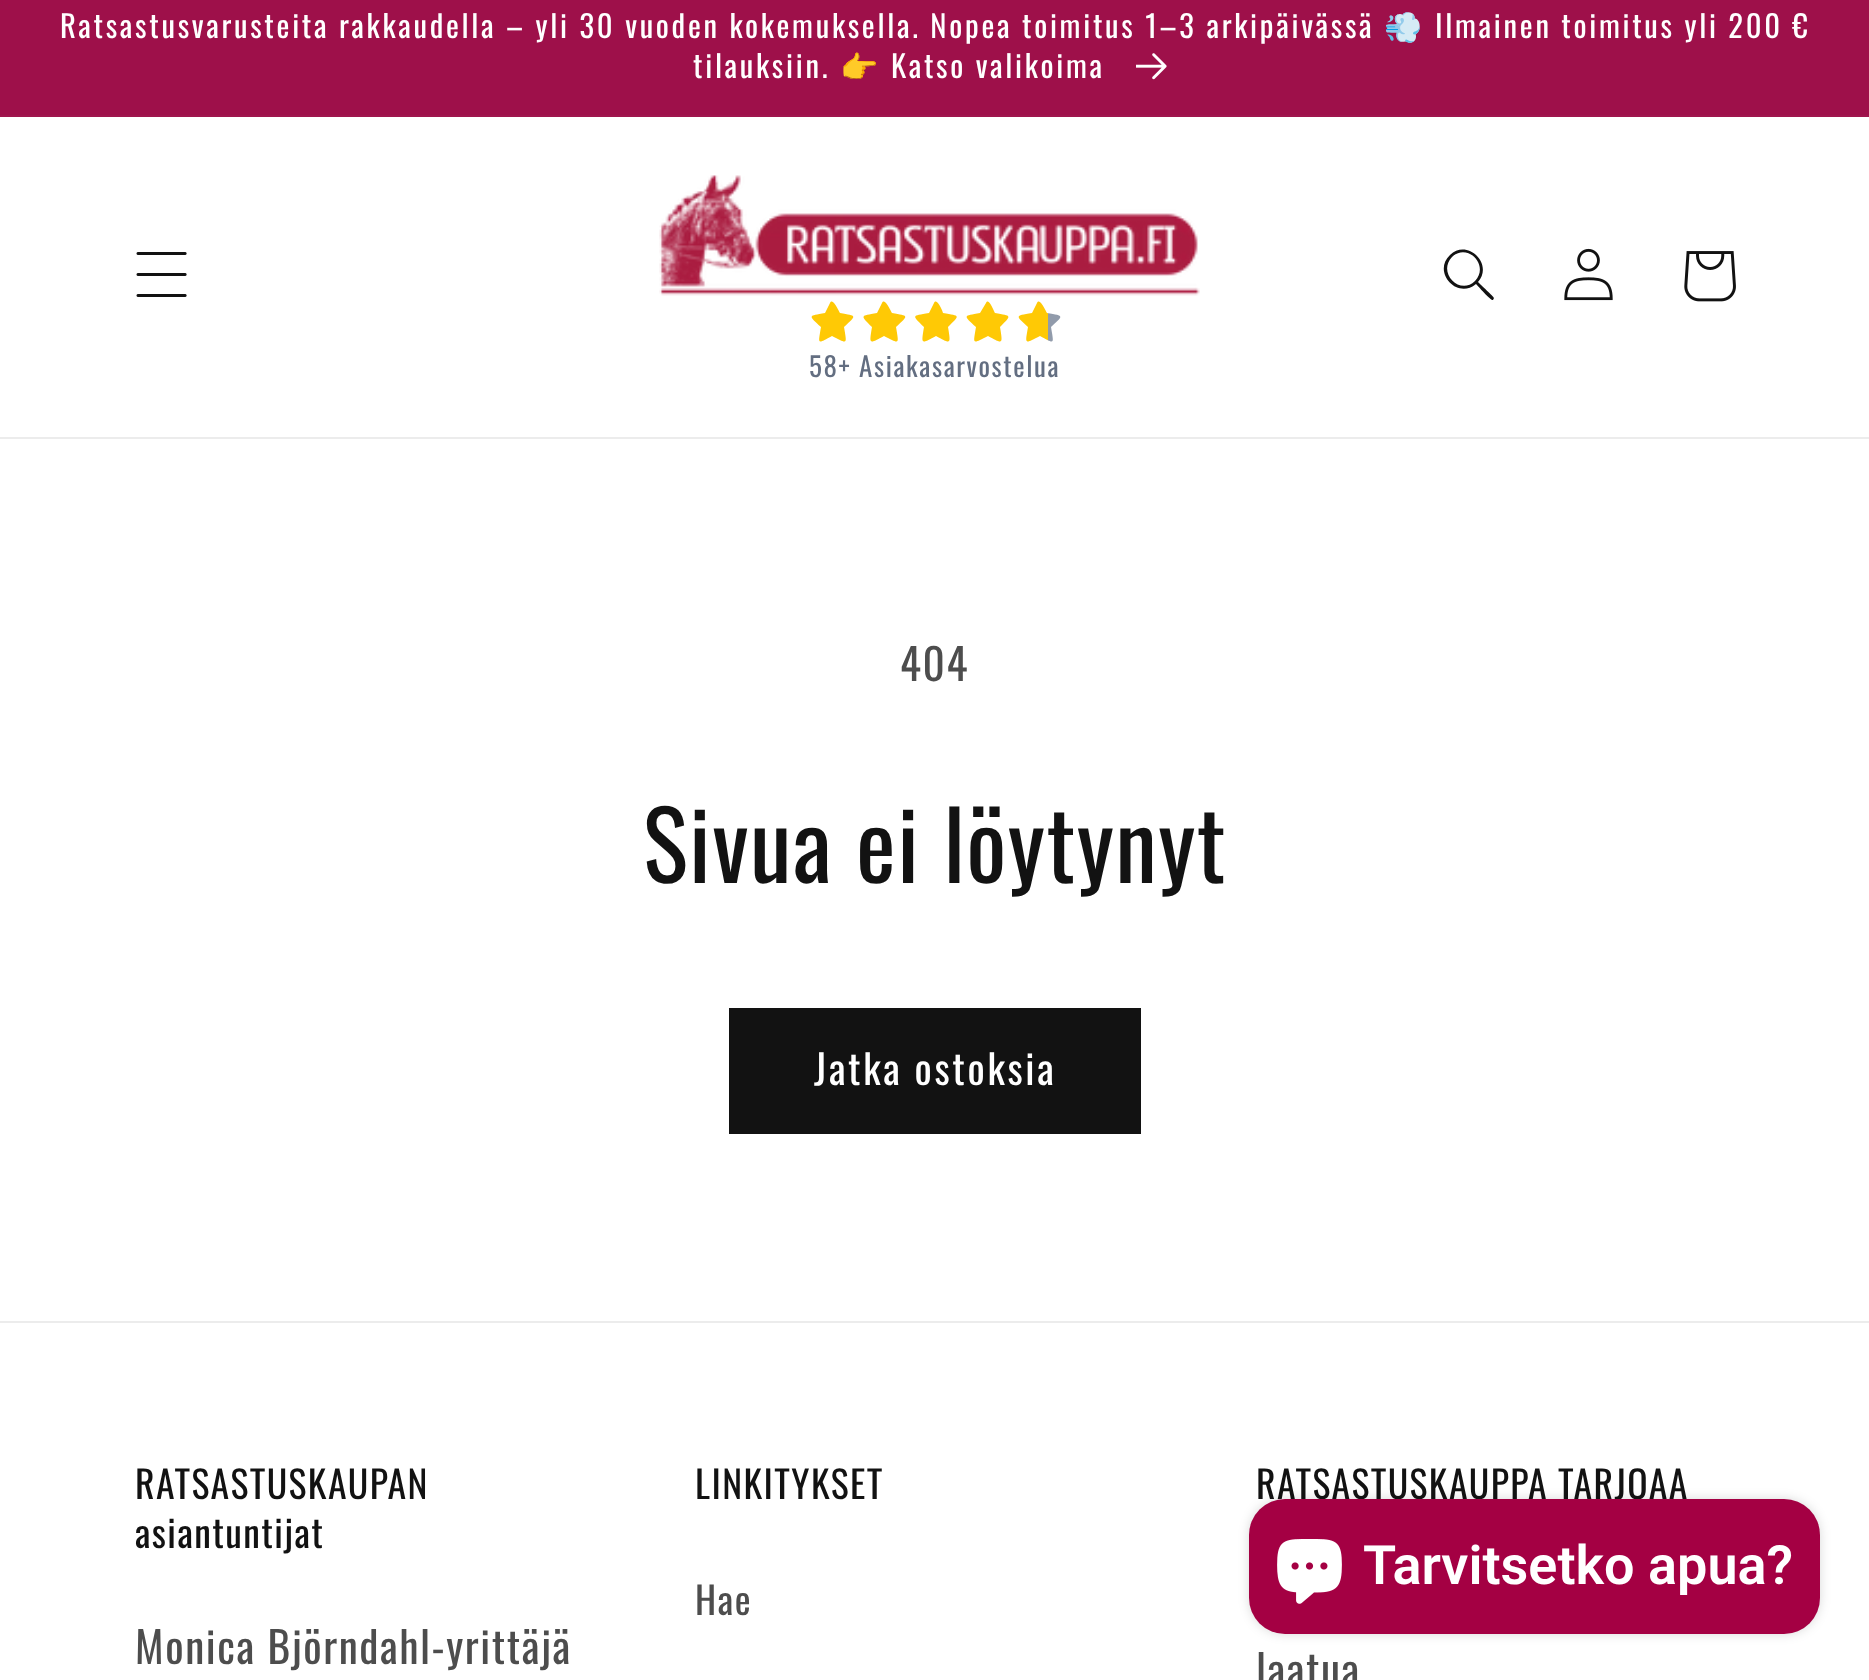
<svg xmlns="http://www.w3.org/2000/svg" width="1869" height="1680">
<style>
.a{font:30.7px Oswald;letter-spacing:2.7px;fill:#fff}
.b{font:30.7px Noto Color Emoji;letter-spacing:2.7px;fill:#fff}
.c{font:27px Oswald;letter-spacing:1.6px;fill:#636e81}
.d{font:43.25px Oswald;letter-spacing:1.6px;fill:#4d4d4d}
.e{font:94.5px Oswald;letter-spacing:1.4px;fill:#121212}
.f{font:40.5px Oswald;letter-spacing:2.7px;fill:#fff}
.g{font:37.75px Oswald;letter-spacing:1.4px;fill:#121212}
.h{font:37.75px Oswald;letter-spacing:1.6px;fill:#4d4d4d}
.i{font:600 54px Roboto;fill:#fff}
</style>
<defs>
<linearGradient id="g1" gradientUnits="userSpaceOnUse" x1="812" y1="302" x2="853" y2="302"><stop offset="1" stop-color="#ffc905"/><stop offset="1" stop-color="#919bab"/></linearGradient>
<linearGradient id="g2" gradientUnits="userSpaceOnUse" x1="863" y1="302" x2="905" y2="302"><stop offset="1" stop-color="#ffc905"/><stop offset="1" stop-color="#919bab"/></linearGradient>
<linearGradient id="g3" gradientUnits="userSpaceOnUse" x1="915" y1="302" x2="957" y2="302"><stop offset="1" stop-color="#ffc905"/><stop offset="1" stop-color="#919bab"/></linearGradient>
<linearGradient id="g4" gradientUnits="userSpaceOnUse" x1="967" y1="302" x2="1009" y2="302"><stop offset="1" stop-color="#ffc905"/><stop offset="1" stop-color="#919bab"/></linearGradient>
<linearGradient id="g5" gradientUnits="userSpaceOnUse" x1="1019" y1="302" x2="1060" y2="302"><stop offset="0.7" stop-color="#ffc905"/><stop offset="0.7" stop-color="#919bab"/></linearGradient>
</defs>
<rect width="100%" height="100%" fill="#fff"/>
<path fill="#9f154d" d="M0 115h1869v2H0z"/>
<path fill="#9e104a" d="M0 0h1869v115H0z"/>
<image href="1.png" x="1136" y="53" width="31" height="27"/>
<path fill="#ececec" d="M0 437h1869v2H0z"/>
<image href="2.png" x="136" y="252" width="51" height="45"/>
<path fill="#121212" fill-rule="evenodd" d="M1475 281c-15 15-38-8-23-24c15-15 38 8 23 24zm1 3c-19 16-44-12-26-29c17-17 44 9 28 27c2 2 16 15 16 16l-1 2c-2 1-15-14-17-16z"/>
<image href="3.png" x="1564" y="248" width="49" height="53"/>
<image href="4.png" x="1684" y="251" width="52" height="51"/>
<image href="5.png" x="659" y="175" width="541" height="121"/>
<path fill="url(#g1)" d="M830 303l-5 10c-17 3-17 2-4 14c-3 18-4 17 11 9c16 8 15 9 12-9c13-12 13-11-4-14c-1-1-7-16-10-10z"/>
<path fill="url(#g2)" d="M882 303l-5 10c-17 3-17 2-5 14c-3 18-3 17 12 9c16 8 15 9 12-9c13-12 13-11-4-14c-1-1-7-16-10-10z"/>
<path fill="url(#g3)" d="M934 303l-5 10c-18 3-17 2-5 14c-3 18-3 17 12 9c15 8 15 9 12-9c12-12 13-11-5-14c0-1-6-16-9-10z"/>
<path fill="url(#g4)" d="M986 303l-6 10c-17 3-17 2-4 14c-3 18-4 17 12 9c15 8 15 9 12-9c12-12 12-11-5-14c-1-1-6-16-9-10z"/>
<path fill="url(#g5)" d="M1037 303l-5 10c-17 3-17 2-4 14c-3 18-4 17 12 9c15 8 14 9 11-9c13-12 13-11-4-14c-1-1-7-16-10-10z"/>
<path fill="none" stroke="#121212" stroke-width="3" d="M730.5 1009.5h409v123H730.5z"/>
<path fill="#121212" d="M732 1011h406v120H732z"/>
<path fill="#ececec" d="M0 1321h1869v2H0z"/>
<rect fill="#00000026" filter="blur(5.5px)" x="1249" y="1499" width="571" height="135" rx="36"/>
<text class="a" x="60" y="38">Ratsastusvarusteita rakkaudella – yli 30 vuoden kokemuksella. Nopea toimitus 1–3 arkipäivässä</text>
<text class="b" x="1384" y="38">💨</text>
<text class="a" x="1435" y="38">Ilmainen toimitus yli 200 €</text>
<text class="a" x="693" y="78">tilauksiin.</text>
<text class="b" x="840" y="78">👉</text>
<text class="a" x="891" y="78">Katso valikoima</text>
<text class="c" x="809" y="377">58+ Asiakasarvostelua</text>
<text class="d" x="900" y="681">404</text>
<text class="e" x="643" y="883">Sivua ei löytynyt</text>
<text class="f" x="814" y="1085">Jatka ostoksia</text>
<text class="g" x="135" y="1499">RATSASTUSKAUPAN</text>
<text class="g" x="135" y="1548">asiantuntijat</text>
<text class="d" x="135" y="1664">Monica Björndahl-yrittäjä</text>
<text class="g" x="695" y="1499">LINKITYKSET</text>
<text class="h" x="695" y="1615">Hae</text>
<text class="g" x="1256" y="1499">RATSASTUSKAUPPA TARJOAA</text>
<text class="d" x="1256" y="1687">laatua</text>
<rect fill="#a40043" x="1249" y="1499" width="571" height="135" rx="36"/>
<image href="6.png" x="1277" y="1539" width="65" height="65"/>
<text class="i" x="1363" y="1584">Tarvitsetko apua?</text>
</svg>
